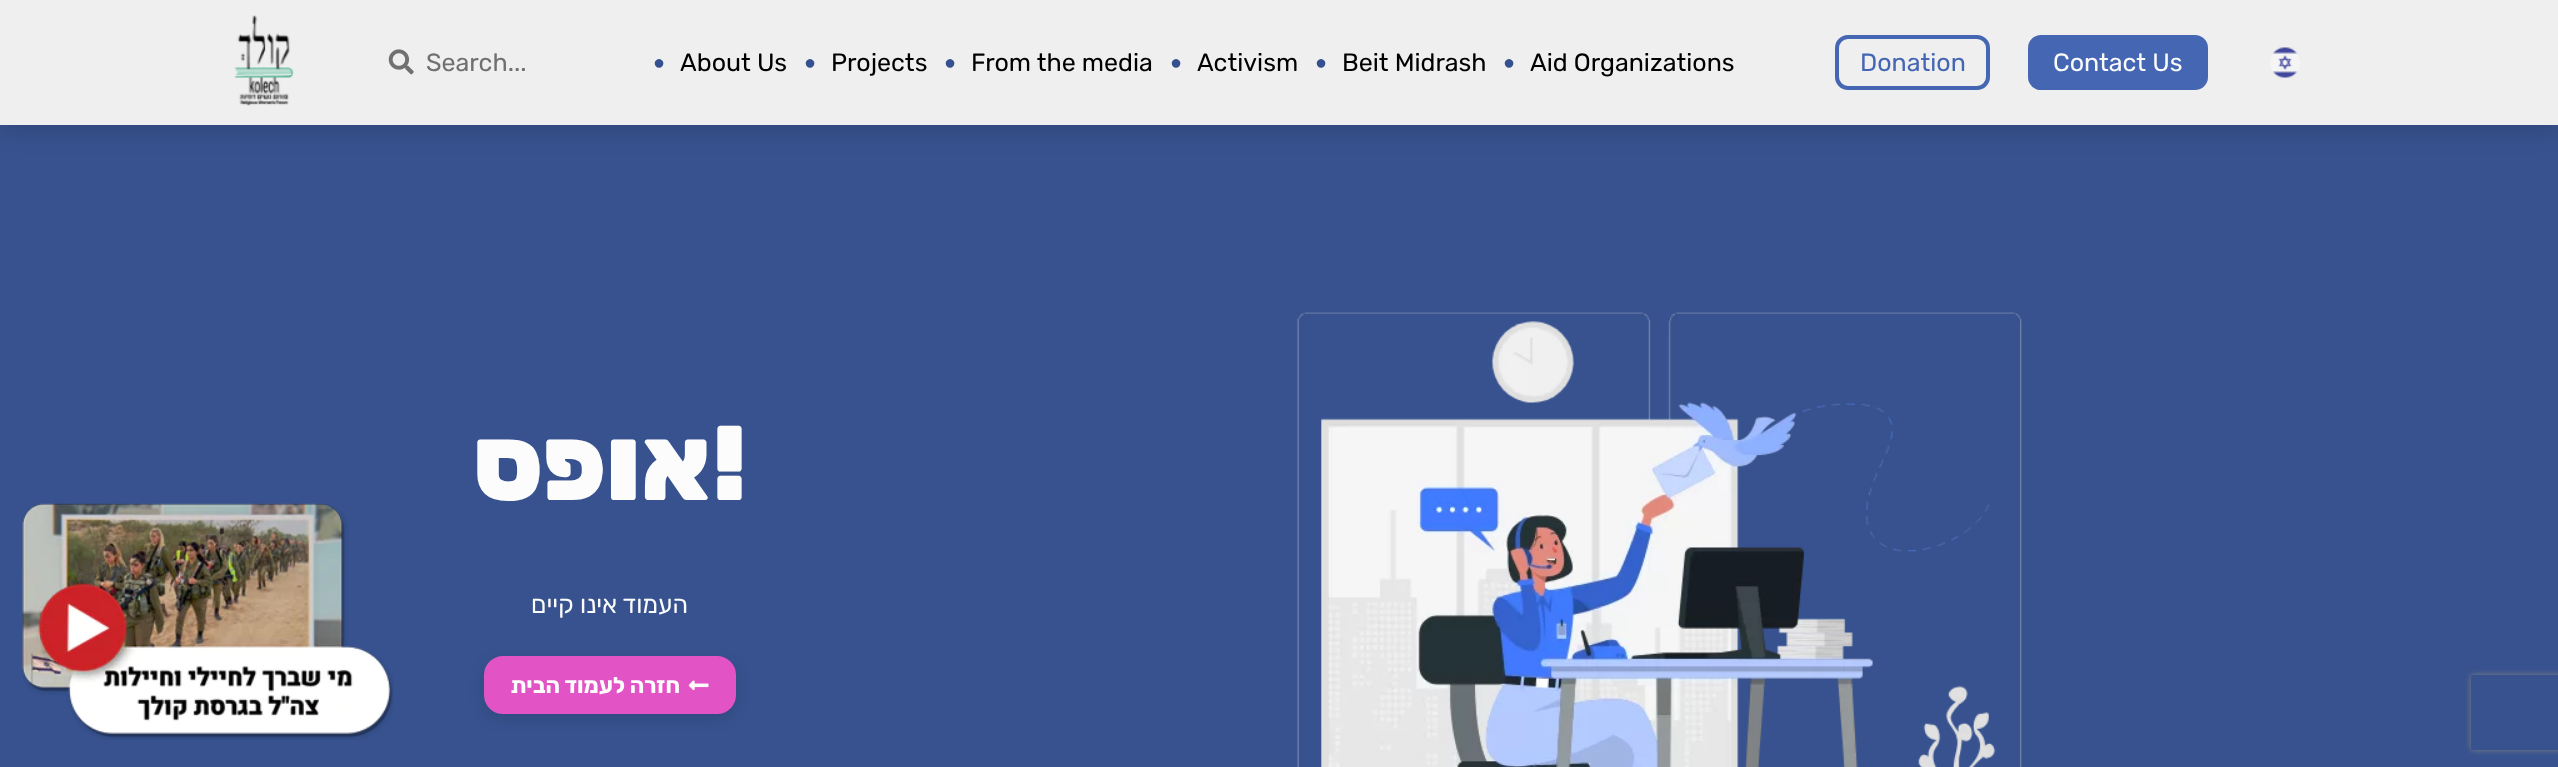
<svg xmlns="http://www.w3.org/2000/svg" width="2558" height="767">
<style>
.a{font:25px Rubik;fill:#707070}
.b{font:20px Liberation Serif;fill:#35508f}
.c{font:25px Rubik;fill:#000}
.d{font:25px Rubik;fill:#4566b3}
.e{font:25px Rubik;fill:#fcfcfc}
.f{font:900 106px Rubik;direction:rtl;fill:#fcfcfc}
.g{font:900 106px Rubik;fill:#fcfcfc}
.h{font:25px Rubik;direction:rtl;fill:#fcfcfc}
.i{font:bold 22.5px Rubik;direction:rtl;fill:#fcfcfc}
</style>
<defs>
<clipPath id="clip1"><path d="M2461 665h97v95h-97zm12.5 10h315c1.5 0 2.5 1 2.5 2.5v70c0 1.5-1 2.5-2.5 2.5h-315c-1.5 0-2.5-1-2.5-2.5v-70c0-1.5 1-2.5 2.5-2.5z" clip-rule="evenodd"/></clipPath>
</defs>
<rect width="100%" height="100%" fill="#37528f"/>
<path fill="#00000026" filter="blur(12.5px)" d="M0 4h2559v125H0z"/>
<path fill="#efefef" d="M0 0h2558v125H0z"/>
<image href="1.png" x="234" y="15" width="60" height="91"/>
<image href="2.png" x="388" y="49" width="26" height="26"/>
<rect fill="none" stroke="#4566b3" stroke-width="4" x="1837" y="37" width="151" height="51" rx="11"/>
<rect fill="#4566b3" x="2028" y="35" width="180" height="55" rx="13"/>
<image href="3.png" x="2270" y="47" width="30" height="31"/>
<image href="4.png" x="22" y="503" width="372" height="237"/>
<rect fill="#0000001a" filter="blur(7.5px)" x="484" y="661" width="252" height="58" rx="19"/>
<rect fill="#e253c5" stroke="#e253c5" stroke-width="3" x="485.5" y="657.5" width="249" height="55" rx="17.5"/>
<image href="5.png" x="688" y="680" width="21" height="11"/>
<image href="6.png" x="1297" y="312" width="725" height="455"/>
<g clip-path="url(#clip1)">
<rect fill="#808080" filter="blur(3px)" x="2471" y="675" width="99" height="75" rx="2.5"/>
</g>
<text class="a" x="426" y="71">Search...</text>
<text class="b" x="653" y="69">●</text>
<text class="c" x="680" y="71">About Us</text>
<text class="b" x="804" y="69">●</text>
<text class="c" x="831" y="71">Projects</text>
<text class="b" x="944" y="69">●</text>
<text class="c" x="971" y="71">From the media</text>
<text class="b" x="1170" y="69">●</text>
<text class="c" x="1197" y="71">Activism</text>
<text class="b" x="1315" y="69">●</text>
<text class="c" x="1342" y="71">Beit Midrash</text>
<text class="b" x="1503" y="69">●</text>
<text class="c" x="1530" y="71">Aid Organizations</text>
<text class="d" x="1860" y="71">Donation</text>
<text class="e" x="2053" y="71">Contact Us</text>
<text class="f" x="712" y="500">אופס</text>
<text class="g" x="712" y="500">!</text>
<text class="h" x="688" y="613">העמוד אינו קיים</text>
<text class="i" x="680" y="693">חזרה לעמוד הבית</text>
</svg>
